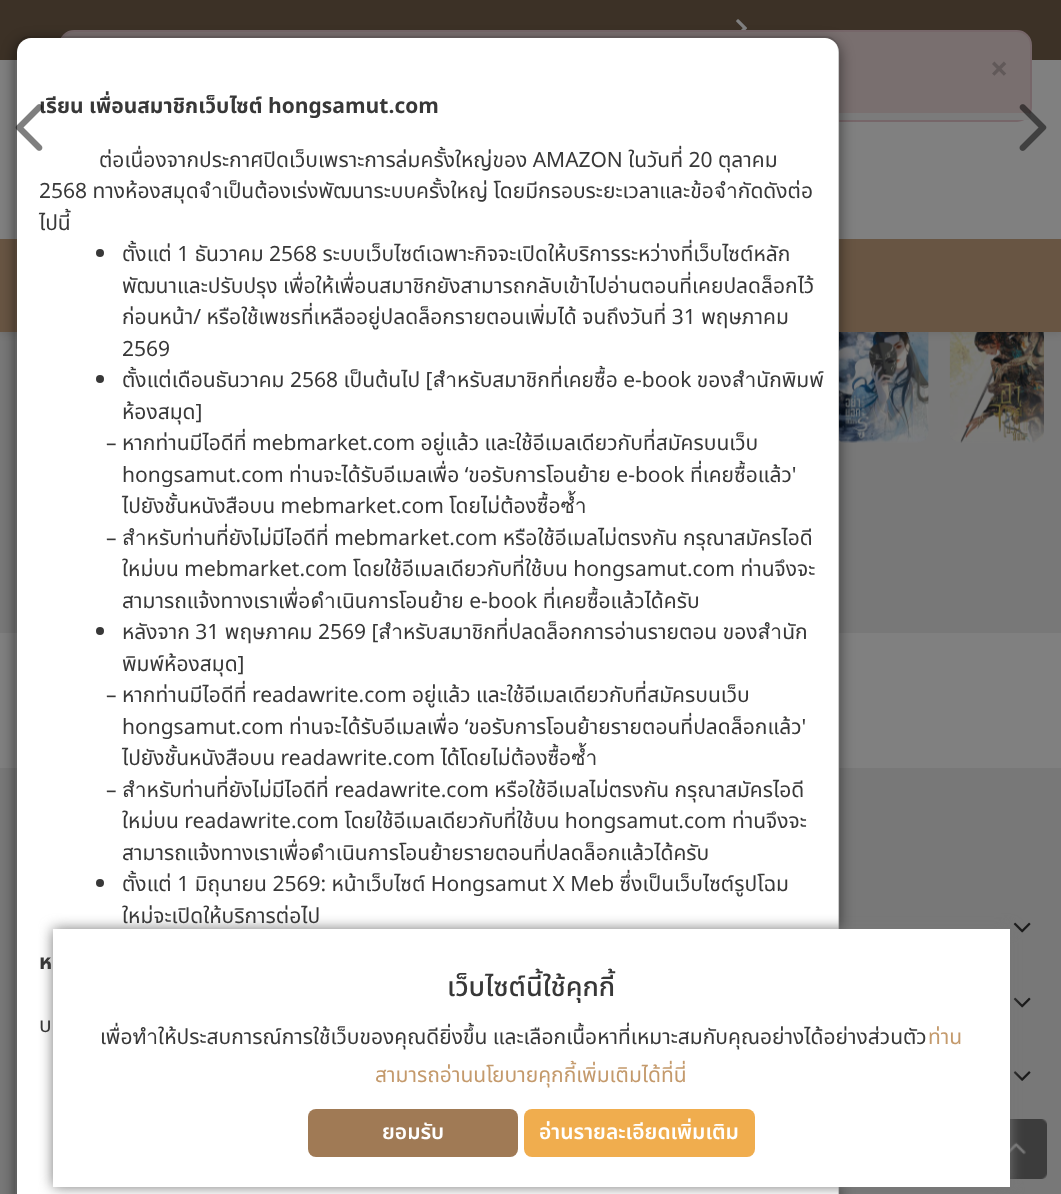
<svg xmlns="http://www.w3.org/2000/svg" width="1061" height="1194">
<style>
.a{font:bold 32px Noto Sans Thai;fill:#615959}
.b{font:bold 21px Noto Sans Thai;fill:#383838}
.c{font:21px Noto Sans Thai;fill:#383838}
.d{font:500 27px Noto Sans Thai;fill:#383838}
.e{font:21px Noto Sans Thai;fill:#c49a6c}
.f{font:600 21px Noto Sans Thai;fill:#fff}
</style>
<defs>
<clipPath id="clip1"><path d="M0 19h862v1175h-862zm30 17h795c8.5 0 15 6.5 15 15v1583c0 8.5-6.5 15-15 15h-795c-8.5 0-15-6.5-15-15v-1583c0-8.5 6.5-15 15-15z" clip-rule="evenodd"/></clipPath>
</defs>
<rect width="100%" height="100%" fill="#808080"/>
<path fill="#787878" d="M0 332h1061v301H0z"/>
<image href="4.png" x="839" y="332" width="90" height="111"/>
<image href="5.png" x="949" y="332" width="95" height="111"/>
<path fill="#0000001a" filter="blur(4.5px)" d="M0 2h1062v331H0z"/>
<path fill="#808080" d="M0 60h1061v179H0z"/>
<path fill="#3c3126" d="M0 0h1061v60H0z"/>
<image href="1.png" x="736" y="19" width="11" height="11"/>
<path fill="#685543" d="M0 239h1061v93H0z"/>
<rect fill="#796f6f" stroke="#766669" stroke-width="2" x="60" y="31" width="971" height="90" rx="14"/>
<rect fill="#7b7b7b" x="60" y="113" width="971" height="7" rx="3.5"/>
<path fill="#787878" d="M0 768h1061v426H0z"/>
<g clip-path="url(#clip1)">
<rect fill="#00000080" filter="blur(7px)" x="15" y="41" width="825" height="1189" rx="15"/>
</g>
<path fill="#fff" d="M31 38h794c7.5 0 14 6.5 14 14v1142h-822v-1142c0-7.5 6.5-14 14-14z"/>
<rect fill="none" stroke="#00000033" stroke-width="2" x="16" y="37" width="823" height="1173" rx="14"/>
<circle fill="#383838" cx="100" cy="253" r="4"/>
<circle fill="#383838" cx="100" cy="379" r="4"/>
<circle fill="#383838" cx="100" cy="631" r="4"/>
<circle fill="#383838" cx="100" cy="883" r="4"/>
<image href="3.png" x="1019" y="104" width="28" height="47"/>
<image href="6.png" x="1013" y="922" width="18" height="11"/>
<image href="6.png" x="1013" y="997" width="18" height="11"/>
<image href="7.png" x="1013" y="1071" width="18" height="10"/>
<image href="8.png" x="1010" y="1119" width="37" height="60"/>
<path fill="#777" filter="blur(7px)" d="M53 929h957v258H53z"/>
<path fill="#fff" d="M53 929h957v258H53z"/>
<rect fill="#a07a55" x="308" y="1109" width="210" height="48" rx="8"/>
<rect fill="#f0ad4e" x="524" y="1109" width="231" height="48" rx="8"/>
<text class="a" x="990" y="80">×</text>
<text class="b" x="39" y="113">เรียน เพื่อนสมาชิกเว็บไซต์ hongsamut.com</text>
<text class="c" x="99" y="167">ต่อเนื่องจากประกาศปิดเว็บเพราะการล่มครั้งใหญ่ของ AMAZON ในวันที่ 20 ตุลาคม</text>
<text class="c" x="39" y="198">2568 ทางห้องสมุดจำเป็นต้องเร่งพัฒนาระบบครั้งใหญ่ โดยมีกรอบระยะเวลาและข้อจำกัดดังต่อ</text>
<text class="c" x="39" y="230">ไปนี้</text>
<text class="c" x="122" y="261">ตั้งแต่ 1 ธันวาคม 2568 ระบบเว็บไซต์เฉพาะกิจจะเปิดให้บริการระหว่างที่เว็บไซต์หลัก</text>
<text class="c" x="122" y="293">พัฒนาและปรับปรุง เพื่อให้เพื่อนสมาชิกยังสามารถกลับเข้าไปอ่านตอนที่เคยปลดล็อกไว้</text>
<text class="c" x="122" y="324">ก่อนหน้า/ หรือใช้เพชรที่เหลืออยู่ปลดล็อกรายตอนเพิ่มได้ จนถึงวันที่ 31 พฤษภาคม</text>
<text class="c" x="122" y="356">2569</text>
<text class="c" x="122" y="387">ตั้งแต่เดือนธันวาคม 2568 เป็นต้นไป [สำหรับสมาชิกที่เคยซื้อ e-book ของสำนักพิมพ์</text>
<text class="c" x="122" y="419">ห้องสมุด]</text>
<text class="c" x="106" y="450">– หากท่านมีไอดีที่ mebmarket.com อยู่แล้ว และใช้อีเมลเดียวกับที่สมัครบนเว็บ</text>
<text class="c" x="122" y="482">hongsamut.com ท่านจะได้รับอีเมลเพื่อ ‘ขอรับการโอนย้าย e-book ที่เคยซื้อแล้ว'</text>
<text class="c" x="122" y="513">ไปยังชั้นหนังสือบน mebmarket.com โดยไม่ต้องซื้อซ้ำ</text>
<text class="c" x="106" y="545">– สำหรับท่านที่ยังไม่มีไอดีที่ mebmarket.com หรือใช้อีเมลไม่ตรงกัน กรุณาสมัครไอดี</text>
<text class="c" x="122" y="576">ใหม่บน mebmarket.com โดยใช้อีเมลเดียวกับที่ใช้บน hongsamut.com ท่านจึงจะ</text>
<text class="c" x="122" y="608">สามารถแจ้งทางเราเพื่อดำเนินการโอนย้าย e-book ที่เคยซื้อแล้วได้ครับ</text>
<text class="c" x="122" y="639">หลังจาก 31 พฤษภาคม 2569 [สำหรับสมาชิกที่ปลดล็อกการอ่านรายตอน ของสำนัก</text>
<text class="c" x="122" y="671">พิมพ์ห้องสมุด]</text>
<text class="c" x="106" y="702">– หากท่านมีไอดีที่ readawrite.com อยู่แล้ว และใช้อีเมลเดียวกับที่สมัครบนเว็บ</text>
<text class="c" x="122" y="734">hongsamut.com ท่านจะได้รับอีเมลเพื่อ ‘ขอรับการโอนย้ายรายตอนที่ปลดล็อกแล้ว'</text>
<text class="c" x="122" y="765">ไปยังชั้นหนังสือบน readawrite.com ได้โดยไม่ต้องซื้อซ้ำ</text>
<text class="c" x="106" y="797">– สำหรับท่านที่ยังไม่มีไอดีที่ readawrite.com หรือใช้อีเมลไม่ตรงกัน กรุณาสมัครไอดี</text>
<text class="c" x="122" y="828">ใหม่บน readawrite.com โดยใช้อีเมลเดียวกับที่ใช้บน hongsamut.com ท่านจึงจะ</text>
<text class="c" x="122" y="860">สามารถแจ้งทางเราเพื่อดำเนินการโอนย้ายรายตอนที่ปลดล็อกแล้วได้ครับ</text>
<text class="c" x="122" y="891">ตั้งแต่ 1 มิถุนายน 2569: หน้าเว็บไซต์ Hongsamut X Meb ซึ่งเป็นเว็บไซต์รูปโฉม</text>
<text class="c" x="122" y="923">ใหม่จะเปิดให้บริการต่อไป</text>
<text class="b" x="39" y="969">ห</text>
<text class="c" x="39" y="1032">บ</text>
<image href="2.png" x="15" y="104" width="28" height="47"/>
<text class="d" x="447" y="996">เว็บไซต์นี้ใช้คุกกี้</text>
<text class="c" x="100" y="1044">เพื่อทำให้ประสบการณ์การใช้เว็บของคุณดียิ่งขึ้น และเลือกเนื้อหาที่เหมาะสมกับคุณอย่างได้อย่างส่วนตัว</text>
<text class="e" x="928" y="1044">ท่าน</text>
<text class="e" x="375" y="1082">สามารถอ่านนโยบายคุกกี้เพิ่มเติมได้ที่นี่</text>
<text class="f" x="382" y="1139">ยอมรับ</text>
<text class="f" x="539" y="1139">อ่านรายละเอียดเพิ่มเติม</text>
</svg>
